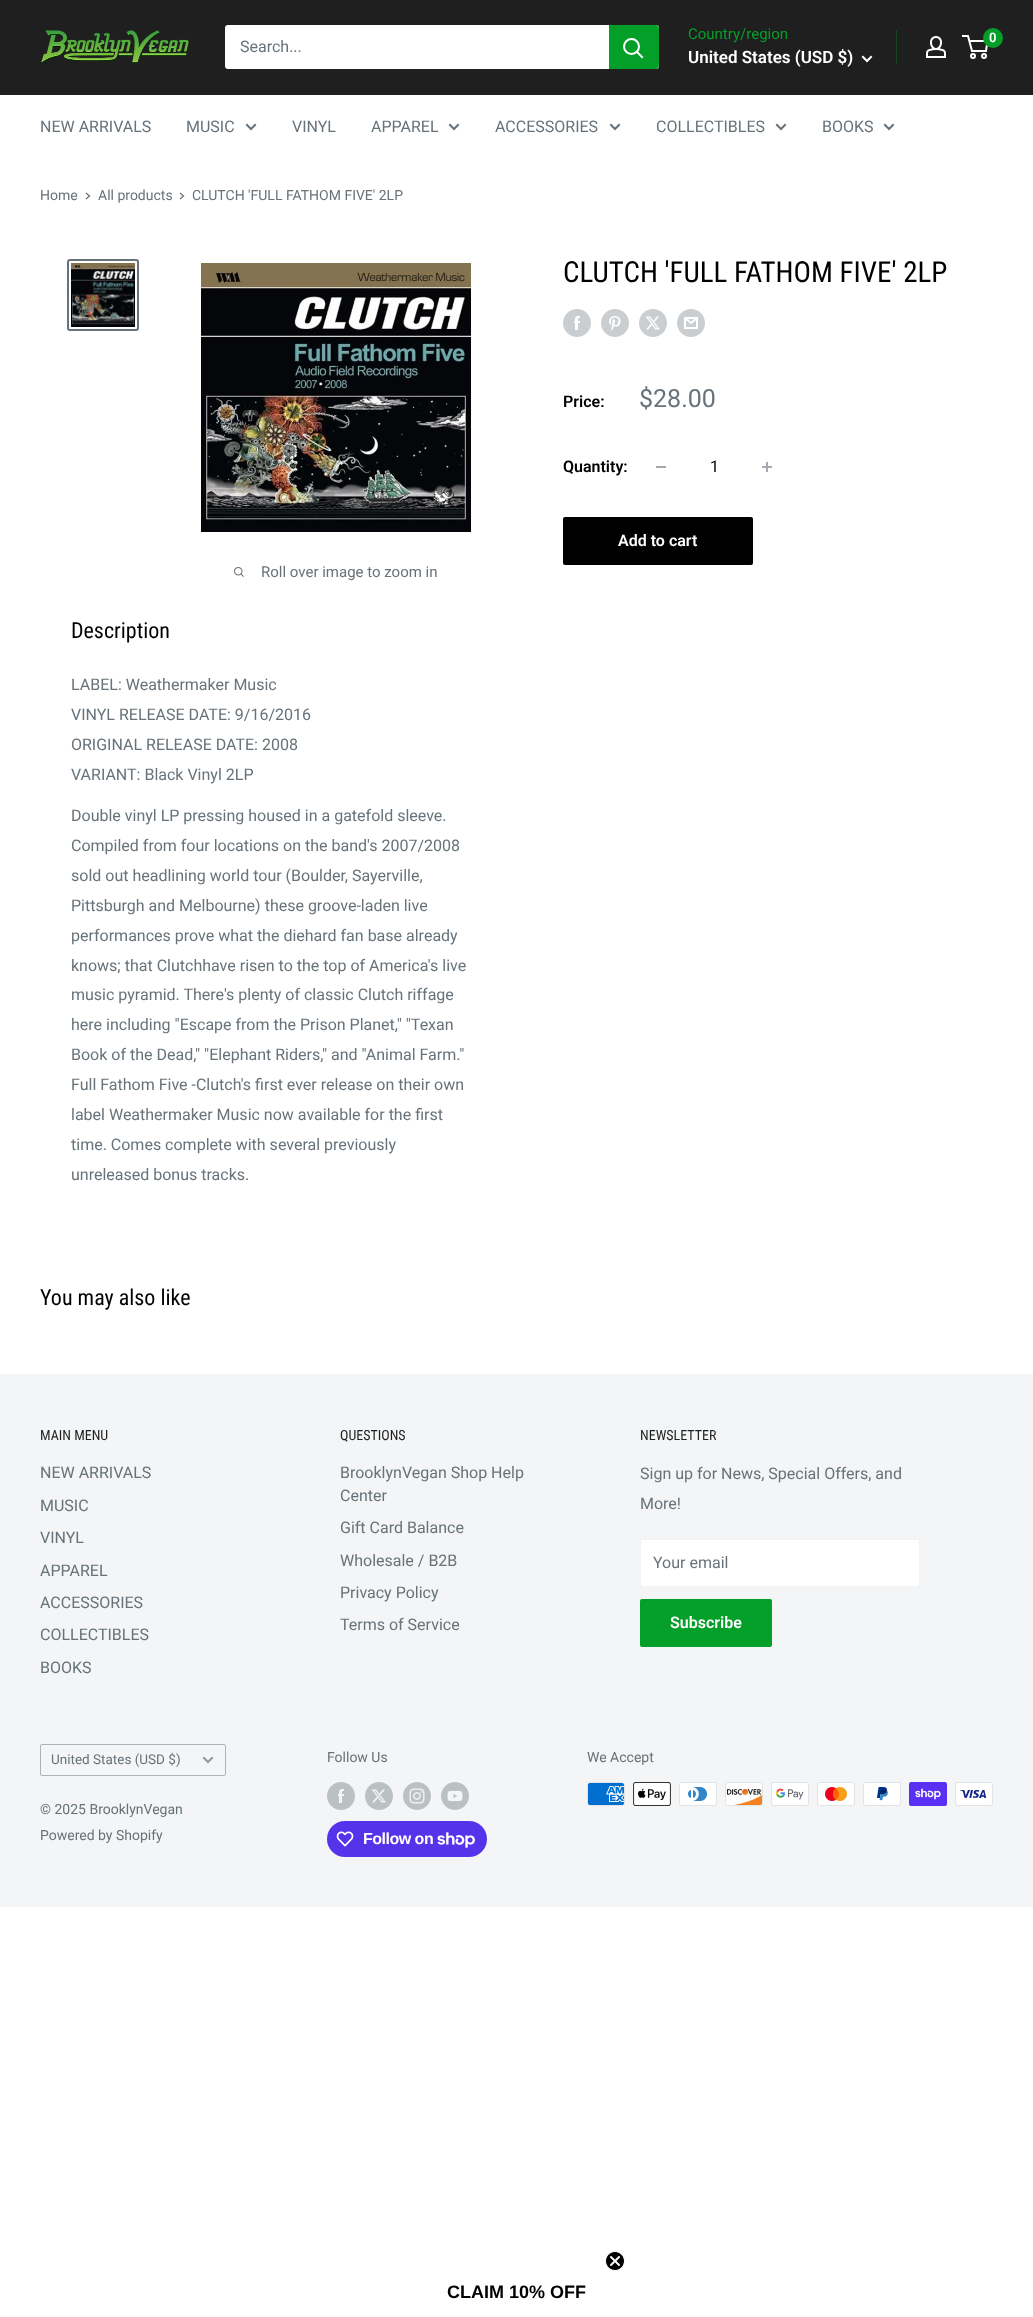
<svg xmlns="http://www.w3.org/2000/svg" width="1033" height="2317">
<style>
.a{font:16px Roboto;fill:#677279}
.b{font:15px Roboto;fill:#049f29}
.c{font:600 17px Roboto;fill:#fff}
.d{font:600 13px Roboto;fill:#fff}
.e{font:14px Roboto;fill:#677279}
.f{font:29px Roboto Condensed;fill:#000}
.g{font:600 16px Roboto;fill:#000}
.h{font:25px Roboto;fill:#677279}
.i{font:16px Roboto;fill:#000}
.j{font:600 16px Roboto;fill:#fff}
.k{font:15px Roboto;fill:#677279}
.l{font:22px Roboto Condensed;fill:#000}
.m{font:14px Roboto Condensed;fill:#1f1f1f}
.n{font:13.5px Roboto;fill:#677279}
.o{font:bold 16px Liberation Sans;letter-spacing:-0.5px;fill:#fff}
.p{font:bold 18px Liberation Sans;fill:#000}
</style>
<rect width="100%" height="100%" fill="#fff"/>
<path fill="#1f1f1f" d="M0 0h1033v95H0z"/>
<image href="1.png" x="41" y="30" width="148" height="34"/>
<rect fill="#fff" x="225" y="25" width="434" height="44" rx="3"/>
<path fill="#049f29" d="M609 25h47c1.5 0 3 1.5 3 3v38c0 1.5-1.5 3-3 3h-47z"/>
<path fill="none" stroke="#fff" stroke-width="2" stroke-linecap="square" d="M642 57l-5-5"/>
<circle fill="none" stroke="#fff" stroke-width="2" cx="631.5" cy="46.5" r="7.5"/>
<path fill="none" stroke="#fff" stroke-width="2" stroke-linecap="square" d="M871 57l-4 4l-4-4"/>
<path fill="#174522" d="M896 30h1v34H896z"/>
<image href="2.png" x="926" y="36" width="20" height="22"/>
<circle fill="none" stroke="#fff" stroke-width="2" cx="973" cy="56" r="2"/>
<circle fill="none" stroke="#fff" stroke-width="2" cx="984" cy="56" r="2"/>
<path fill="none" stroke="#fff" stroke-width="2" d="M969.5 41h18l-1.5 10h-14l-4-15h-6"/>
<circle fill="#049f29" cx="993" cy="38" r="10"/>
<path fill="none" stroke="#677279" stroke-width="2" stroke-linecap="square" d="M255 125l-4 4l-4-4"/>
<path fill="none" stroke="#677279" stroke-width="2" stroke-linecap="square" d="M458 125l-4 4l-4-4"/>
<path fill="none" stroke="#677279" stroke-width="2" stroke-linecap="square" d="M619 125l-4 4l-4-4"/>
<path fill="none" stroke="#677279" stroke-width="2" stroke-linecap="square" d="M785 125l-4 4l-4-4"/>
<path fill="none" stroke="#677279" stroke-width="2" stroke-linecap="square" d="M893 125l-4 4l-4-4"/>
<path fill="none" stroke="#677279" stroke-width="1.3" stroke-linecap="square" d="M86.5 193.5l3 2.5l-3 2.5"/>
<path fill="none" stroke="#677279" stroke-width="1.3" stroke-linecap="square" d="M180.5 193.5l3 2.5l-3 2.5"/>
<image href="3.png" x="563" y="309" width="28" height="28"/>
<image href="4.png" x="601" y="309" width="28" height="28"/>
<image href="5.png" x="639" y="309" width="28" height="28"/>
<image href="6.png" x="677" y="309" width="28" height="28"/>
<path fill="#a4aaaf" d="M656 466h10v2H656z"/>
<image href="7.png" x="762" y="462" width="10" height="10"/>
<rect fill="#000" x="563" y="517" width="190" height="48" rx="2"/>
<rect fill="none" stroke="#677279" stroke-width="2" x="68" y="260" width="70" height="70" rx="2"/>
<image href="8.png" x="71" y="263" width="64" height="64"/>
<image href="9.png" x="201" y="263" width="270" height="269"/>
<image href="10.png" x="234" y="567" width="10" height="10"/>
<path fill="#f3f5f6" d="M0 1374h1033v533H0z"/>
<rect fill="#fff" stroke="#f2f2f2" x="640.5" y="1539.5" width="279" height="47" rx="1.5"/>
<rect fill="#049f29" x="640" y="1599" width="132" height="48" rx="2"/>
<path fill="#f7f8f9" d="M41 1773c0 1 0 2 1 2h183v-2c0 1 0 1-1 1h-183z"/>
<rect fill="none" stroke="#adb4b8" x="40.5" y="1744.5" width="185" height="31" rx="1.5"/>
<path fill="none" stroke="#91999f" stroke-width="2" stroke-linecap="square" d="M212 1758l-4 4l-4-4"/>
<image href="11.png" x="327" y="1782" width="28" height="28"/>
<image href="12.png" x="365" y="1782" width="28" height="28"/>
<image href="13.png" x="403" y="1782" width="28" height="28"/>
<image href="14.png" x="441" y="1782" width="28" height="28"/>
<rect fill="#5433eb" x="327" y="1821" width="160" height="36" rx="18"/>
<image href="15.png" x="336" y="1831" width="18" height="16"/>
<image href="16.png" x="437" y="1832" width="38" height="16"/>
<image href="17.png" x="587" y="1782" width="38" height="24"/>
<image href="18.png" x="633" y="1782" width="38" height="24"/>
<image href="19.png" x="679" y="1782" width="38" height="24"/>
<image href="20.png" x="725" y="1782" width="38" height="24"/>
<image href="21.png" x="771" y="1782" width="38" height="24"/>
<image href="22.png" x="817" y="1782" width="38" height="24"/>
<image href="23.png" x="863" y="1782" width="38" height="24"/>
<image href="24.png" x="909" y="1782" width="38" height="24"/>
<image href="25.png" x="955" y="1782" width="38" height="24"/>
<image href="26.png" x="605" y="2251" width="20" height="20"/>
<text class="a" x="240" y="52">Search...</text>
<text class="b" x="688" y="39">Country/region</text>
<text class="c" x="688" y="63">United States (USD $)</text>
<text class="d" x="989" y="42">0</text>
<text class="a" x="40" y="132">NEW ARRIVALS</text>
<text class="a" x="186" y="132">MUSIC</text>
<text class="a" x="292" y="132">VINYL</text>
<text class="a" x="371" y="132">APPAREL</text>
<text class="a" x="495" y="132">ACCESSORIES</text>
<text class="a" x="656" y="132">COLLECTIBLES</text>
<text class="a" x="822" y="132">BOOKS</text>
<text class="e" x="40" y="200">Home</text>
<text class="e" x="98" y="200">All products</text>
<text class="e" x="192" y="200">CLUTCH 'FULL FATHOM FIVE' 2LP</text>
<text class="f" x="563" y="282">CLUTCH 'FULL FATHOM FIVE' 2LP</text>
<text class="g" x="563" y="407">Price:</text>
<text class="h" x="639" y="407">$28.00</text>
<text class="g" x="563" y="472">Quantity:</text>
<text class="i" x="710" y="472">1</text>
<text class="j" x="618" y="546">Add to cart</text>
<text class="k" x="261" y="577">Roll over image to zoom in</text>
<text class="l" x="71" y="638">Description</text>
<text class="a" x="71" y="690">LABEL: Weathermaker Music</text>
<text class="a" x="71" y="720">VINYL RELEASE DATE: 9/16/2016</text>
<text class="a" x="71" y="750">ORIGINAL RELEASE DATE: 2008</text>
<text class="a" x="71" y="780">VARIANT: Black Vinyl 2LP</text>
<text class="a" x="71" y="821">Double vinyl LP pressing housed in a gatefold sleeve.</text>
<text class="a" x="71" y="851">Compiled from four locations on the band's 2007/2008</text>
<text class="a" x="71" y="881">sold out headlining world tour (Boulder, Sayerville,</text>
<text class="a" x="71" y="911">Pittsburgh and Melbourne) these groove-laden live</text>
<text class="a" x="71" y="941">performances prove what the diehard fan base already</text>
<text class="a" x="71" y="971">knows; that Clutchhave risen to the top of America's live</text>
<text class="a" x="71" y="1000">music pyramid. There's plenty of classic Clutch riffage</text>
<text class="a" x="71" y="1030">here including "Escape from the Prison Planet," "Texan</text>
<text class="a" x="71" y="1060">Book of the Dead," "Elephant Riders," and "Animal Farm."</text>
<text class="a" x="71" y="1090">Full Fathom Five -Clutch's first ever release on their own</text>
<text class="a" x="71" y="1120">label Weathermaker Music now available for the first</text>
<text class="a" x="71" y="1150">time. Comes complete with several previously</text>
<text class="a" x="71" y="1180">unreleased bonus tracks.</text>
<text class="l" x="40" y="1305">You may also like</text>
<text class="m" x="40" y="1440">MAIN MENU</text>
<text class="a" x="40" y="1478">NEW ARRIVALS</text>
<text class="a" x="40" y="1511">MUSIC</text>
<text class="a" x="40" y="1543">VINYL</text>
<text class="a" x="40" y="1576">APPAREL</text>
<text class="a" x="40" y="1608">ACCESSORIES</text>
<text class="a" x="40" y="1640">COLLECTIBLES</text>
<text class="a" x="40" y="1673">BOOKS</text>
<text class="m" x="340" y="1440">QUESTIONS</text>
<text class="a" x="340" y="1478">BrooklynVegan Shop Help</text>
<text class="a" x="340" y="1501">Center</text>
<text class="a" x="340" y="1533">Gift Card Balance</text>
<text class="a" x="340" y="1566">Wholesale / B2B</text>
<text class="a" x="340" y="1598">Privacy Policy</text>
<text class="a" x="340" y="1630">Terms of Service</text>
<text class="m" x="640" y="1440">NEWSLETTER</text>
<text class="a" x="640" y="1479">Sign up for News, Special Offers, and</text>
<text class="a" x="640" y="1509">More!</text>
<text class="a" x="653" y="1568">Your email</text>
<text class="j" x="670" y="1628">Subscribe</text>
<text class="n" x="51" y="1764">United States (USD $)</text>
<text class="e" x="40" y="1814">© 2025 BrooklynVegan</text>
<text class="e" x="40" y="1840">Powered by Shopify</text>
<text class="e" x="327" y="1762">Follow Us</text>
<text class="o" x="363" y="1844">Follow on</text>
<text class="e" x="587" y="1762">We Accept</text>
<text class="p" x="447" y="2298">CLAIM 10% OFF</text>
</svg>
